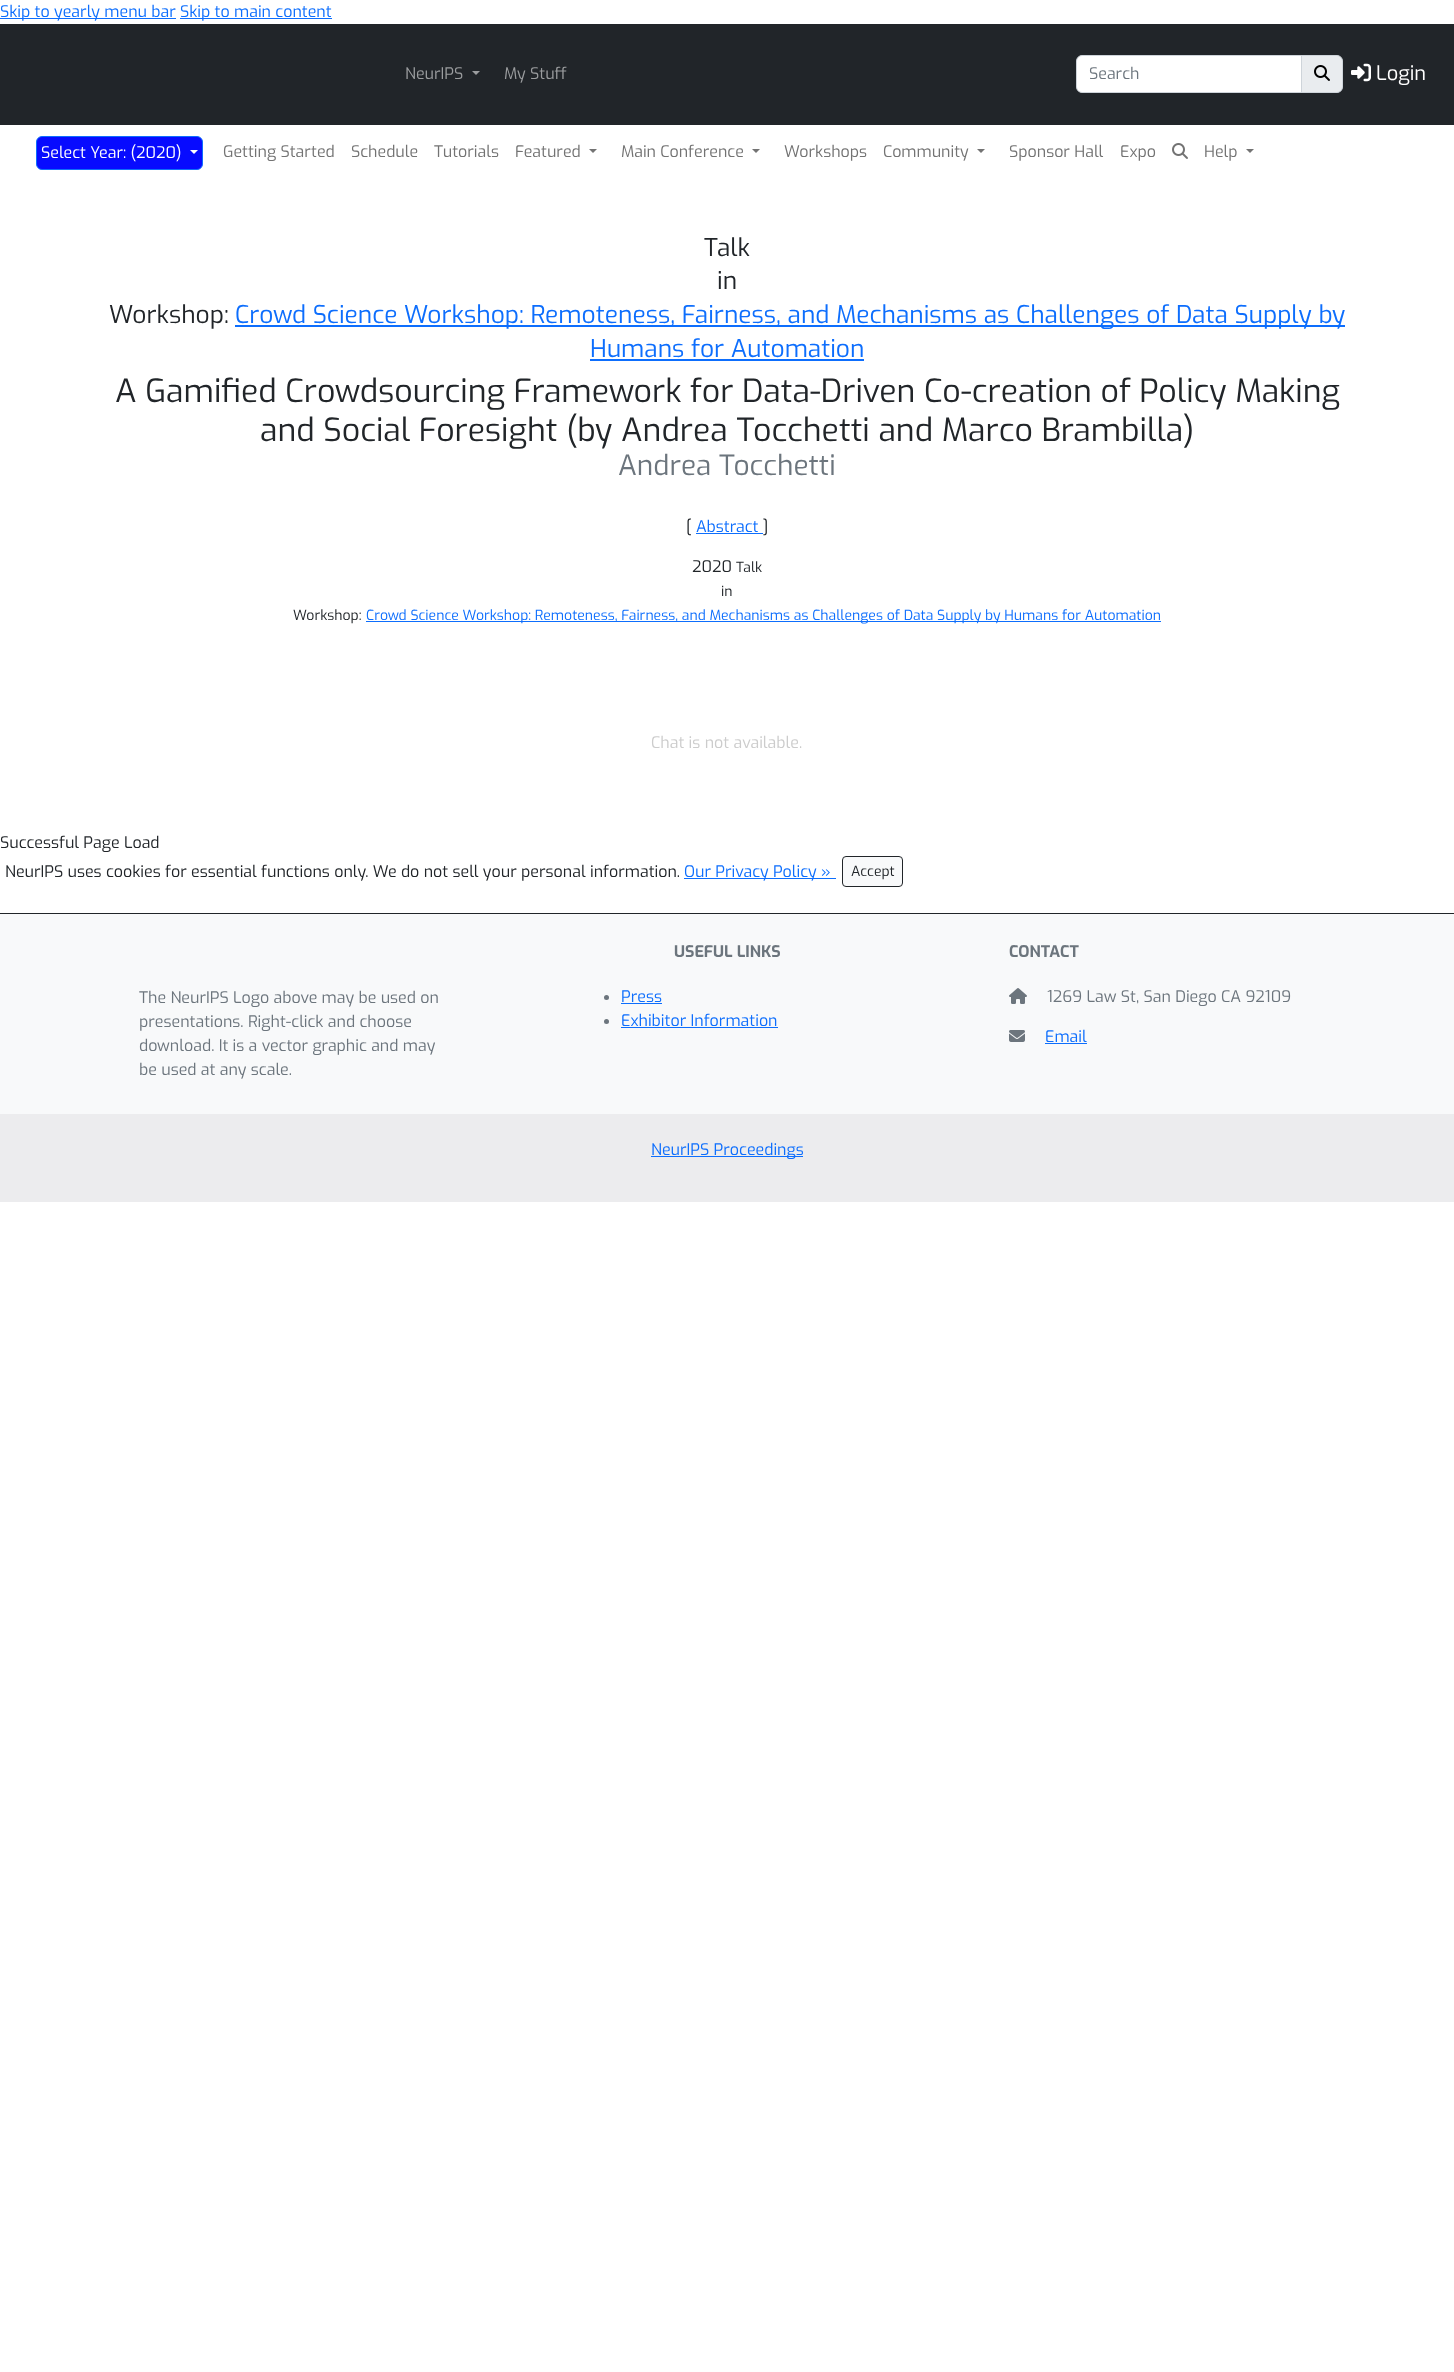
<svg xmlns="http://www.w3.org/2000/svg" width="1454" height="2372">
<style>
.a{font:16px Exo;fill:#0d6efd}
.b{font:16px Exo;fill:#9b9d9f}
.c{font:16px Exo;fill:#6c757d}
.d{font:20px Exo;fill:#fff}
.e{font:16px Exo;fill:#fff}
.f{font:16px Exo;fill:#737373}
.g{font:24.5px Exo;fill:#212529}
.h{font:24.5px Exo;fill:#0d6efd}
.i{font:32px Exo;fill:#212529}
.j{font:28px Exo;fill:#6c757d}
.k{font:16px Exo;fill:#212529}
.l{font:14px Exo;fill:#212529}
.m{font:14px Exo;fill:#0d6efd}
.n{font:16px Exo;fill:#ccc}
.o{font:bold 16px Exo;fill:#6c757d}
</style>
<rect width="100%" height="100%" fill="#fff"/>
<path fill="#0d6efd" d="M0 18h176v1H0z"/>
<path fill="#0d6efd" d="M180 18h152v1H180z"/>
<path fill="#212529" d="M0 24h1454v101H0z"/>
<path fill="#9b9d9f" d="M472 71h8l-4 4z"/>
<path fill="#e9ecef" stroke="#ced4da" d="M1301.5 55.5h35.5c3 0 5.5 2.5 5.5 5.5v26c0 3-2.5 5.5-5.5 5.5h-35.5z"/>
<path fill="#fff" stroke="#ced4da" d="M1082 55.5h219.5v37h-219.5c-3 0-5.5-2.5-5.5-5.5v-26c0-3 2.5-5.5 5.5-5.5z"/>
<image href="1.png" x="1314" y="65" width="16" height="16"/>
<image href="2.png" x="1351" y="63" width="20" height="19"/>
<rect fill="#070bff" stroke="#0d6efd" x="36.5" y="136.5" width="166" height="33" rx="5.5"/>
<path fill="#fff" d="M190 150h8l-4 4z"/>
<path fill="#737373" d="M589 149h8l-4 4z"/>
<path fill="#737373" d="M752 149h8l-4 4z"/>
<path fill="#737373" d="M977 149h8l-4 4z"/>
<image href="3.png" x="1172" y="143" width="16" height="16"/>
<path fill="#737373" d="M1246 149h8l-4 4z"/>
<path fill="#0d6efd" d="M235 325h1110v2H235z"/>
<path fill="#0d6efd" d="M590 359h274v2H590z"/>
<path fill="#0d6efd" d="M696 533h67v1H696z"/>
<path fill="#0d6efd" d="M366 621h795v1H366z"/>
<path fill="#0d6efd" d="M684 878h152v1H684z"/>
<rect fill="#f8f9fa" stroke="#212529" x="842.5" y="856.5" width="60" height="30" rx="3.5"/>
<path fill="#f8f9fa" d="M0 914h1454v200H0z"/>
<path fill="#212529" d="M0 913h1454v1H0z"/>
<circle fill="#6c757d" cx="606.5" cy="997.5" r="2.5"/>
<path fill="#0d6efd" d="M621 1003h41v1H621z"/>
<circle fill="#6c757d" cx="606.5" cy="1021.5" r="2.5"/>
<path fill="#0d6efd" d="M621 1027h157v1H621z"/>
<image href="4.png" x="1009" y="988" width="18" height="16"/>
<image href="5.png" x="1009" y="1030" width="16" height="12"/>
<path fill="#0d6efd" d="M1045 1043h42v1H1045z"/>
<path fill="#ececee" d="M0 1114h1454v88H0z"/>
<path fill="#0d6efd" d="M651 1156h152v1H651z"/>
<text class="a" x="0" y="17">Skip to yearly menu bar</text>
<text class="a" x="180" y="17">Skip to main content</text>
<text class="b" x="405" y="79">NeurIPS</text>
<text class="b" x="504" y="79">My Stuff</text>
<text class="c" x="1089" y="79">Search</text>
<text class="d" x="1376" y="80">Login</text>
<text class="e" x="41" y="158">Select Year: (2020)</text>
<text class="f" x="223" y="157">Getting Started</text>
<text class="f" x="351" y="157">Schedule</text>
<text class="f" x="434" y="157">Tutorials</text>
<text class="f" x="515" y="157">Featured</text>
<text class="f" x="621" y="157">Main Conference</text>
<text class="f" x="784" y="157">Workshops</text>
<text class="f" x="883" y="157">Community</text>
<text class="f" x="1009" y="157">Sponsor Hall</text>
<text class="f" x="1120" y="157">Expo</text>
<text class="f" x="1204" y="157">Help</text>
<text class="g" x="704" y="256">Talk</text>
<text class="g" x="717" y="289">in</text>
<text class="g" x="109" y="323">Workshop:</text>
<text class="h" x="235" y="323">Crowd Science Workshop: Remoteness, Fairness, and Mechanisms as Challenges of Data Supply by</text>
<text class="h" x="590" y="357">Humans for Automation</text>
<text class="i" x="115" y="402">A Gamified Crowdsourcing Framework for Data-Driven Co-creation of Policy Making</text>
<text class="i" x="260" y="441">and Social Foresight (by Andrea Tocchetti and Marco Brambilla)</text>
<text class="j" x="618" y="475">Andrea Tocchetti</text>
<text class="k" x="686" y="532">[</text>
<text class="a" x="696" y="532">Abstract</text>
<text class="k" x="763" y="532">]</text>
<text class="k" x="692" y="572">2020</text>
<text class="l" x="736" y="572">Talk</text>
<text class="l" x="721" y="596">in</text>
<text class="l" x="293" y="620">Workshop:</text>
<text class="m" x="366" y="620">Crowd Science Workshop: Remoteness, Fairness, and Mechanisms as Challenges of Data Supply by Humans for Automation</text>
<text class="n" x="651" y="748">Chat is not available.</text>
<text class="k" x="0" y="848">Successful Page Load</text>
<text class="k" x="5" y="877">NeurIPS uses cookies for essential functions only. We do not sell your personal information.</text>
<text class="a" x="684" y="877">Our Privacy Policy »</text>
<text class="l" x="851" y="876">Accept</text>
<text class="c" x="139" y="1003">The NeurIPS Logo above may be used on</text>
<text class="c" x="139" y="1027">presentations. Right-click and choose</text>
<text class="c" x="139" y="1051">download. It is a vector graphic and may</text>
<text class="c" x="139" y="1075">be used at any scale.</text>
<text class="o" x="674" y="957">USEFUL LINKS</text>
<text class="a" x="621" y="1002">Press</text>
<text class="a" x="621" y="1026">Exhibitor Information</text>
<text class="o" x="1009" y="957">CONTACT</text>
<text class="c" x="1047" y="1002">1269 Law St, San Diego CA 92109</text>
<text class="a" x="1045" y="1042">Email</text>
<text class="a" x="651" y="1155">NeurIPS Proceedings</text>
</svg>
